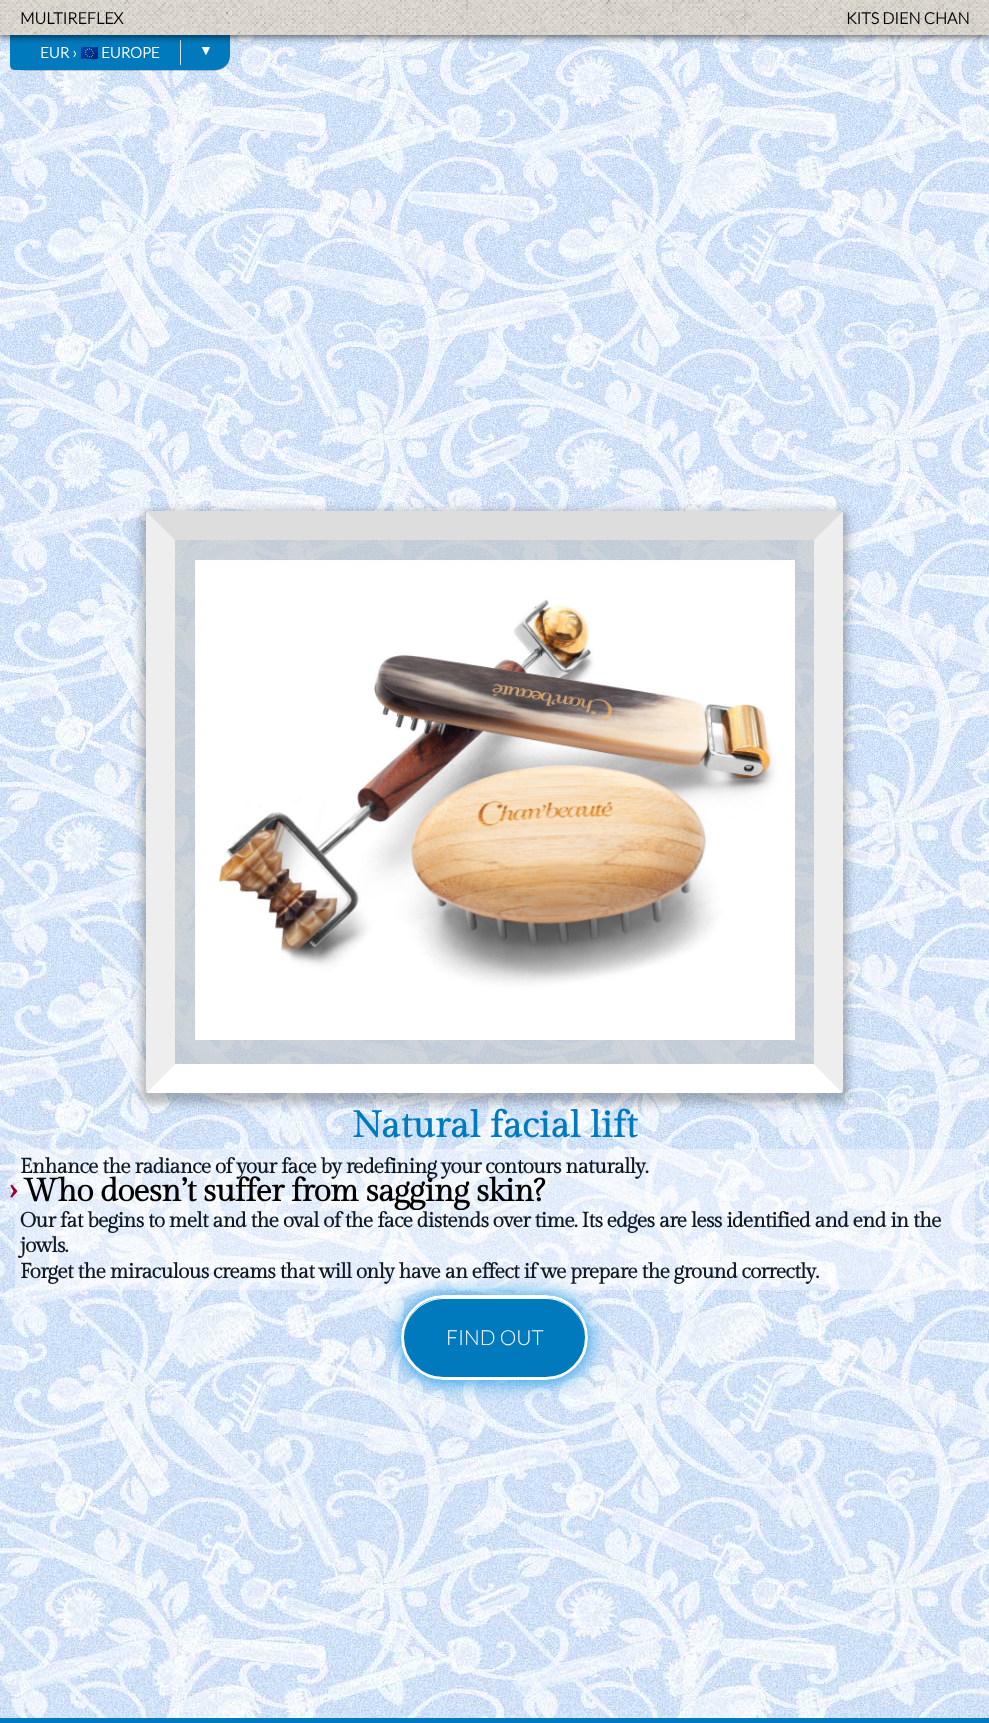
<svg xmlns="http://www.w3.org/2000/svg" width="989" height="1723">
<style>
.a{font:bold 16px Lato;fill:#000}
.b{font:bold 15px Lato;fill:#fff}
.c{font:bold 15px Noto Color Emoji;fill:#fff}
.d{font:bold 14px Liberation Sans;fill:#fff}
.e{font:bold 36.75px Gilda Display;fill:#007abc}
.f{font:bold 20.8px Gilda Display;letter-spacing:-0.7px;fill:#0f1926}
.g{font:bold 32px Gilda Display;letter-spacing:-0.7px;fill:#903}
.h{font:bold 32px Gilda Display;letter-spacing:-0.7px;fill:#000}
.i{font:300 20.8px Lato;fill:#fff}
</style>
<defs>
<clipPath id="clip1"><path d="M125 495h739v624h-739zm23 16h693c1 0 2 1 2 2v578c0 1-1 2-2 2h-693c-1 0-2-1-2-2v-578c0-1 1-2 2-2z" clip-rule="evenodd"/></clipPath>
</defs>
<rect width="100%" height="100%" fill="#007abc"/>
<image href="2.png" x="0" y="35" width="989" height="1683"/>
<rect fill="#00000033" filter="blur(0.5px)" x="10" y="36" width="220" height="35" rx="15"/>
<path fill="#007abc" d="M10 35h220v20c0 8.5-6.5 15-15 15h-200c-3 0-5-2-5-5z"/>
<path fill="#ddd" d="M180 40h1v25H180z"/>
<path fill="#00000099" filter="blur(3.5px)" d="M0 2h989v35H0z"/>
<image href="1.png" x="0" y="0" width="989" height="35"/>
<g clip-path="url(#clip1)">
<rect fill="#00000040" filter="blur(5px)" x="141" y="511" width="707" height="592" rx="7"/>
</g>
<rect fill="#bdc5cab3" x="146" y="511" width="697" height="582" rx="2"/>
<path fill="#ddd" d="M148 511l-1 1l28 28h639l28-28l-1-1z"/>
<path fill="#eee" d="M843 1091v-578l-1-1l-28 28v524l28 28z"/>
<path fill="#fff" d="M148 1093h693l1-1l-28-28h-639l-28 28z"/>
<path fill="#eee" d="M175 540l-28-28l-1 1v578l1 1l28-28z"/>
<image href="3.png" x="195" y="560" width="600" height="480"/>
<path fill="#ffffff6b" d="M15 1149h960v141H15z"/>
<rect fill="#0e96e5" filter="blur(10px)" x="401" y="1296" width="187" height="85" rx="42.5"/>
<rect fill="#007abc" x="401" y="1295" width="187" height="85" rx="42.5"/>
<path fill="#fff" d="M444 1299h102c21 0 39 18 39 39c0-22-18-40-39-40h-102c-22 0-40 18-40 40c0-21 18-39 40-39z"/>
<rect fill="none" stroke="#fff" stroke-width="3" x="402.5" y="1296.5" width="184" height="82" rx="41"/>
<text class="a" x="20" y="24">MULTIREFLEX</text>
<text class="a" x="846" y="24">KITS DIEN CHAN</text>
<text class="b" x="40" y="58">EUR ›</text>
<text class="c" x="80" y="58">🇪🇺</text>
<text class="b" x="101" y="58">EUROPE</text>
<text class="d" x="199" y="55">▼</text>
<text class="e" x="352" y="1137">Natural facial lift</text>
<text class="f" x="20" y="1173">Enhance the radiance of your face by redefining your contours naturally.</text>
<text class="g" x="8" y="1201">›</text>
<text class="h" x="23" y="1201">Who doesn’t suffer from sagging skin?</text>
<text class="f" x="20" y="1227">Our fat begins to melt and the oval of the face distends over time. Its edges are less identified and end in the</text>
<text class="f" x="20" y="1252">jowls.</text>
<text class="f" x="20" y="1278">Forget the miraculous creams that will only have an effect if we prepare the ground correctly.</text>
<text class="i" x="446" y="1345">FIND OUT</text>
</svg>
